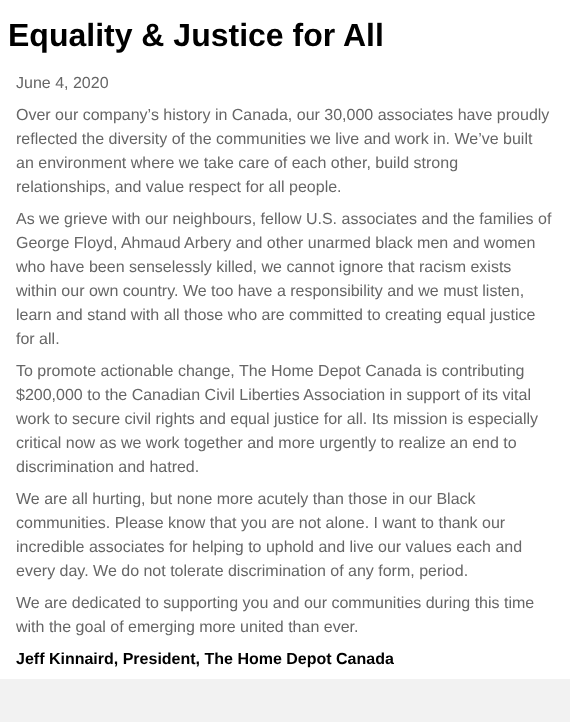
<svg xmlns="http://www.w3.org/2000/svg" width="570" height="722">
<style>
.a{font:bold 32px Liberation Sans;fill:#000}
.b{font:16px Liberation Sans;fill:#666}
.c{font:bold 16px Liberation Sans;fill:#000}
</style>
<rect width="100%" height="100%" fill="#fff"/>
<path fill="#f2f2f2" d="M0 679h570v43H0z"/>
<text class="a" x="8" y="46">Equality &amp; Justice for All</text>
<text class="b" x="16" y="88">June 4, 2020</text>
<text class="b" x="16" y="120">Over our company’s history in Canada, our 30,000 associates have proudly</text>
<text class="b" x="16" y="144">reflected the diversity of the communities we live and work in. We’ve built</text>
<text class="b" x="16" y="168">an environment where we take care of each other, build strong</text>
<text class="b" x="16" y="192">relationships, and value respect for all people.</text>
<text class="b" x="16" y="224">As we grieve with our neighbours, fellow U.S. associates and the families of</text>
<text class="b" x="16" y="248">George Floyd, Ahmaud Arbery and other unarmed black men and women</text>
<text class="b" x="16" y="272">who have been senselessly killed, we cannot ignore that racism exists</text>
<text class="b" x="16" y="296">within our own country. We too have a responsibility and we must listen,</text>
<text class="b" x="16" y="320">learn and stand with all those who are committed to creating equal justice</text>
<text class="b" x="16" y="344">for all.</text>
<text class="b" x="16" y="376">To promote actionable change, The Home Depot Canada is contributing</text>
<text class="b" x="16" y="400">$200,000 to the Canadian Civil Liberties Association in support of its vital</text>
<text class="b" x="16" y="424">work to secure civil rights and equal justice for all. Its mission is especially</text>
<text class="b" x="16" y="448">critical now as we work together and more urgently to realize an end to</text>
<text class="b" x="16" y="472">discrimination and hatred.</text>
<text class="b" x="16" y="504">We are all hurting, but none more acutely than those in our Black</text>
<text class="b" x="16" y="528">communities. Please know that you are not alone. I want to thank our</text>
<text class="b" x="16" y="552">incredible associates for helping to uphold and live our values each and</text>
<text class="b" x="16" y="576">every day. We do not tolerate discrimination of any form, period.</text>
<text class="b" x="16" y="608">We are dedicated to supporting you and our communities during this time</text>
<text class="b" x="16" y="632">with the goal of emerging more united than ever.</text>
<text class="c" x="16" y="664">Jeff Kinnaird, President, The Home Depot Canada</text>
</svg>
